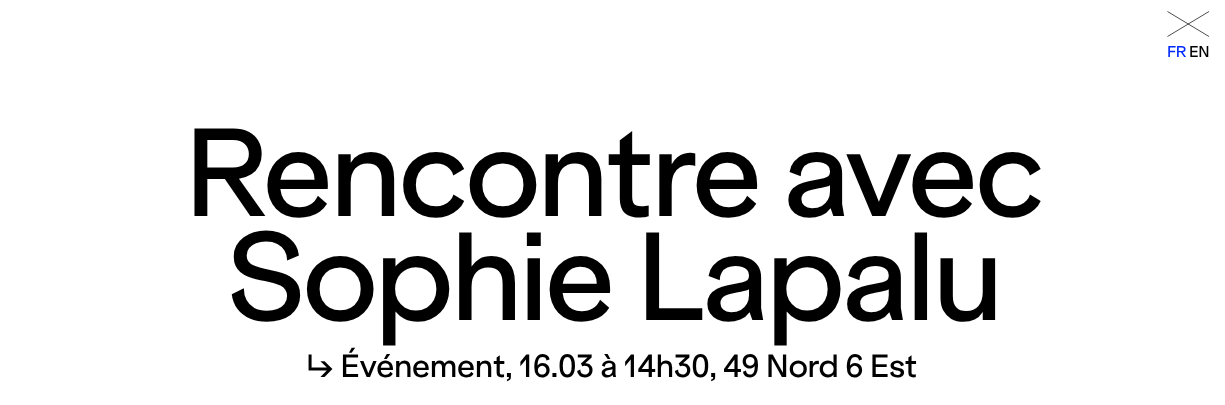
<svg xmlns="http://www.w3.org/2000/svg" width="1225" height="405">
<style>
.a{font:500 15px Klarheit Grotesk;letter-spacing:-0.4px;fill:#0029ff}
.b{font:500 15px Klarheit Grotesk;letter-spacing:-0.4px;fill:#000}
.c{font:500 119px Klarheit Grotesk;letter-spacing:-3.5px;fill:#000}
.d{font:500 30.6px Klarheit Grotesk;letter-spacing:-0.4px;fill:#000}
</style>
<rect width="100%" height="100%" fill="#fff"/>
<path fill="none" stroke="#000" stroke-width="0.7" d="M1167.5 11.5l41.5 25m0-25l-41.5 25"/>
<text class="a" x="1167" y="57">FR</text>
<text class="b" x="1189" y="57">EN</text>
<text class="c" x="184" y="216">Rencontre avec</text>
<text class="c" x="226" y="320">Sophie Lapalu</text>
<text class="d" x="307" y="377">↳ Événement, 16.03 à 14h30, 49 Nord 6 Est</text>
</svg>
